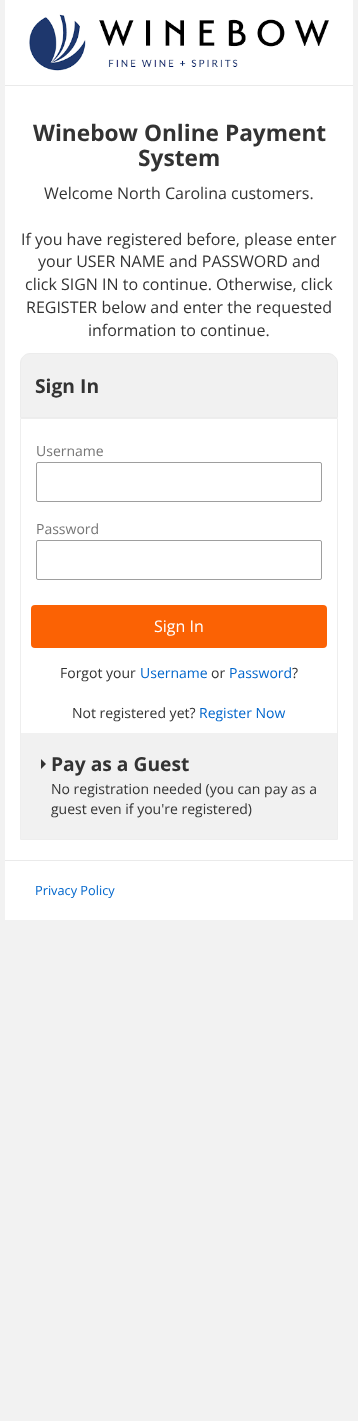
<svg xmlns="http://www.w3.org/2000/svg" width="358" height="1421">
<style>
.a{font:bold 22.7px Open Sans;fill:#333}
.b{font:16px Open Sans;fill:#333}
.c{font:bold 19.25px Open Sans;fill:#333}
.d{font:14px Open Sans;fill:#757575}
.e{font:16px Open Sans;fill:#fff}
.f{font:14px Open Sans;fill:#333}
.g{font:14px Open Sans;fill:#06c}
.h{font:12.75px Open Sans;fill:#06c}
</style>
<rect width="100%" height="100%" fill="#f2f2f2"/>
<path fill="#fff" d="M5 0h348v85H5z"/>
<image href="1.png" x="29" y="14" width="300" height="57"/>
<path fill="#fff" d="M5 86h348v774H5z"/>
<path fill="#eaeaea" d="M5 85h348v1H5z"/>
<path fill="#f1f1f1" stroke="#ececec" d="M30 353.5h298c5 0 9.5 4.5 9.5 9.5v54.5h-317v-54.5c0-5 4.5-9.5 9.5-9.5z"/>
<path fill="none" stroke="#eee" d="M20.5 418.5h317v421H20.5z"/>
<rect fill="none" stroke="#9e9e9e" x="36.5" y="462.5" width="285" height="39" rx="1.5"/>
<rect fill="none" stroke="#9e9e9e" x="36.5" y="540.5" width="285" height="39" rx="1.5"/>
<rect fill="#fb6204" x="31" y="605" width="296" height="43" rx="4"/>
<path fill="#f1f1f1" d="M21 733h316v106H21z"/>
<path fill="#333" d="M41 769v-10l5 5z"/>
<path fill="#fff" d="M5 861h348v59H5z"/>
<path fill="#eaeaea" d="M5 860h348v1H5z"/>
<text class="a" x="33" y="141">Winebow Online Payment</text>
<text class="a" x="138" y="166">System</text>
<text class="b" x="44" y="199">Welcome North Carolina customers.</text>
<text class="b" x="21" y="245">If you have registered before, please enter</text>
<text class="b" x="38" y="267">your USER NAME and PASSWORD and</text>
<text class="b" x="25" y="290">click SIGN IN to continue. Otherwise, click</text>
<text class="b" x="26" y="313">REGISTER below and enter the requested</text>
<text class="b" x="88" y="336">information to continue.</text>
<text class="c" x="35" y="393">Sign In</text>
<text class="d" x="36" y="456">Username</text>
<text class="d" x="36" y="534">Password</text>
<text class="e" x="154" y="632">Sign In</text>
<text class="f" x="60" y="678">Forgot your</text>
<text class="g" x="140" y="678">Username</text>
<text class="f" x="211" y="678">or</text>
<text class="g" x="229" y="678">Password</text>
<text class="f" x="292" y="678">?</text>
<text class="f" x="72" y="718">Not registered yet?</text>
<text class="g" x="199" y="718">Register Now</text>
<text class="c" x="51" y="771">Pay as a Guest</text>
<text class="f" x="51" y="794">No registration needed (you can pay as a</text>
<text class="f" x="51" y="814">guest even if you're registered)</text>
<text class="h" x="35" y="895">Privacy Policy</text>
</svg>
